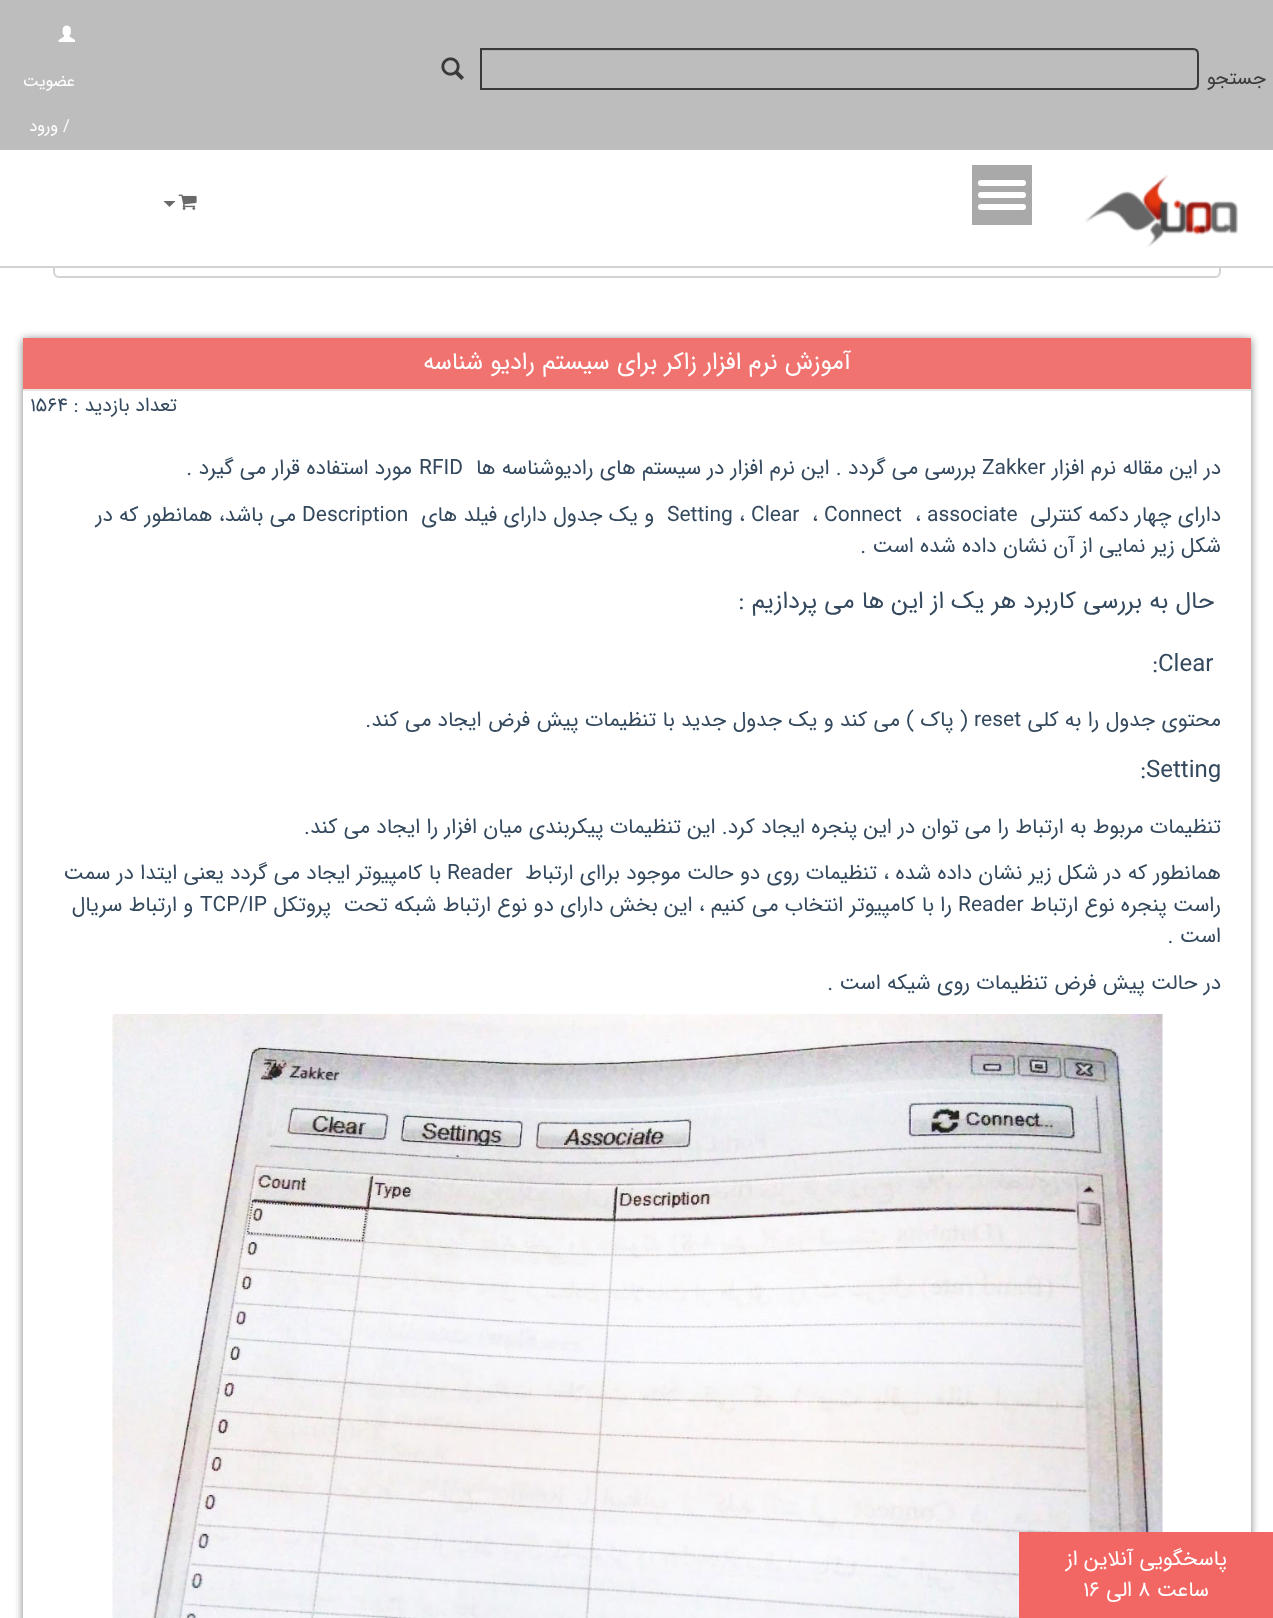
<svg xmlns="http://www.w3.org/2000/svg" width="1273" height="1618">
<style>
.a{font:19.5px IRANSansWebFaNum;direction:rtl;fill:#393939}
.b{font:16.5px IRANSansWebFaNum;direction:rtl;fill:#fff}
.c{font:16.5px IRANSansWebFaNum;fill:#fff}
.d{font:24px IRANSansWebFaNum;direction:rtl;fill:#fff}
.e{font:19.5px IRANSansWebFaNum;direction:rtl;fill:#34495e}
.f{font:19.5px IRANSansWebFaNum;fill:#34495e}
.g{font:21px IRANSansWebFaNum;direction:rtl;fill:#34495e}
.h{font:21px IRANSansWebFaNum;fill:#34495e}
.i{font:24px IRANSansWebFaNum;direction:rtl;fill:#34495e}
.j{font:24px IRANSansWebFaNum;fill:#34495e}
.k{font:21px IRANSansWebFaNum;direction:rtl;fill:#fff}
.l{font:21px IRANSansWebFaNum;fill:#fff}
</style>
<defs>
<clipPath id="clip1"><path d="M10 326h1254v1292h-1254zm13 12h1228v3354h-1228z" clip-rule="evenodd"/></clipPath>
</defs>
<rect width="100%" height="100%" fill="#fff"/>
<rect fill="none" stroke="#d3d3d3" stroke-width="2" x="54" y="213" width="1166" height="64" rx="5"/>
<path fill="#fff" d="M53 212h1168v54H53z"/>
<path fill="#d3d3d3" d="M0 266h1273v2H0z"/>
<path fill="#bdbdbd" d="M0 0h1273v150H0z"/>
<path fill="#afafaf" d="M482 51h710c3 0 5 2 5 5c0-3-2-6-5-6h-710z"/>
<path fill="none" stroke="#393939" stroke-width="2" d="M481 49h712c3 0 5 2 5 5v30c0 3-2 5-5 5h-712z"/>
<image href="1.png" x="441" y="57" width="23" height="23"/>
<image href="2.png" x="58" y="25" width="17" height="17"/>
<image href="3.png" x="1084" y="174" width="154" height="73"/>
<path fill="#a9a9a9" d="M972 165h60v60H972z"/>
<rect fill="#fff" x="978" y="180" width="48" height="6" rx="3"/>
<rect fill="#fff" x="978" y="192" width="48" height="6" rx="3"/>
<rect fill="#fff" x="978" y="204" width="48" height="6" rx="3"/>
<image href="4.png" x="178" y="194" width="19" height="16"/>
<path fill="#696969" d="M163.5 201h12l-6 6z"/>
<g clip-path="url(#clip1)">
<path fill="#00000080" filter="blur(4px)" d="M23 339h1228v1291H23z"/>
</g>
<path fill="#f17370" d="M23 338h1228v51H23z"/>
<path fill="#e5e5e5" d="M23 389h1228v2H23z"/>
<image href="5.png" x="112" y="1014" width="1051" height="604"/>
<path fill="#f26663" d="M1019 1532h254v86H1019z"/>
<text class="a" x="1266" y="84">جستجو</text>
<text class="b" x="75" y="86">عضویت</text>
<text class="c" x="63" y="131">/</text>
<text class="b" x="58" y="131">ورود</text>
<text class="d" x="851" y="369">آموزش نرم افزار زاکر برای سیستم رادیو شناسه</text>
<text class="e" x="177" y="411">تعداد بازدید :</text>
<text class="f" x="30" y="411">1564</text>
<text class="g" x="1221" y="474">در این مقاله نرم افزار</text>
<text class="h" x="982" y="474">Zakker</text>
<text class="g" x="976" y="474">بررسی می گردد . این نرم افزار در سیستم های رادیوشناسه ها</text>
<text class="h" x="419" y="474">RFID</text>
<text class="g" x="412" y="474">مورد استفاده قرار می گیرد .</text>
<text class="g" x="1221" y="521">دارای چهار دکمه کنترلی</text>
<text class="h" x="927" y="521">associate</text>
<text class="h" x="915" y="521">،</text>
<text class="h" x="824" y="521">Connect</text>
<text class="h" x="812" y="521">،</text>
<text class="h" x="751" y="521">Clear</text>
<text class="h" x="739" y="521">،</text>
<text class="h" x="667" y="521">Setting</text>
<text class="g" x="654" y="521">و یک جدول دارای فیلد های</text>
<text class="h" x="302" y="521">Description</text>
<text class="g" x="296" y="521">می باشد، همانطور که در</text>
<text class="g" x="1221" y="552">شکل زیر نمایی از آن نشان داده شده است .</text>
<text class="i" x="1214" y="608">حال به بررسی کاربرد هر یک از این ها می پردازیم :</text>
<text class="j" x="1158" y="671">Clear</text>
<text class="j" x="1152" y="671">:</text>
<text class="g" x="1221" y="726">محتوی جدول را به کلی</text>
<text class="h" x="974" y="726">reset</text>
<text class="g" x="968" y="726">( پاک ) می کند و یک جدول جدید با تنظیمات پیش فرض ایجاد می کند.</text>
<text class="j" x="1146" y="777">Setting</text>
<text class="j" x="1140" y="777">:</text>
<text class="g" x="1221" y="833">تنظیمات مربوط به ارتباط را می توان در این پنجره ایجاد کرد. این تنظیمات پیکربندی میان افزار را ایجاد می کند.</text>
<text class="g" x="1221" y="879">همانطور که در شکل زیر نشان داده شده ، تنظیمات روی دو حالت موجود براای ارتباط</text>
<text class="h" x="447" y="879">Reader</text>
<text class="g" x="441" y="879">با کامپیوتر ایجاد می گردد یعنی ایتدا در سمت</text>
<text class="g" x="1221" y="911">راست پنجره نوع ارتباط</text>
<text class="h" x="958" y="911">Reader</text>
<text class="g" xml:space="preserve" x="952" y="911">را با کامپیوتر انتخاب می کنیم ، این بخش دارای دو نوع ارتباط شبکه تحت  پروتکل</text>
<text class="h" x="200" y="911">TCP/IP</text>
<text class="g" x="193" y="911">و ارتباط سریال</text>
<text class="g" x="1221" y="942">است .</text>
<text class="g" x="1221" y="989">در حالت پیش فرض تنظیمات روی شیکه است .</text>
<text class="k" x="1227" y="1565">پاسخگویی آنلاین از</text>
<text class="k" x="1209" y="1596">ساعت</text>
<text class="l" x="1138" y="1596">8</text>
<text class="k" x="1132" y="1596">الی</text>
<text class="l" x="1083" y="1596">16</text>
</svg>
